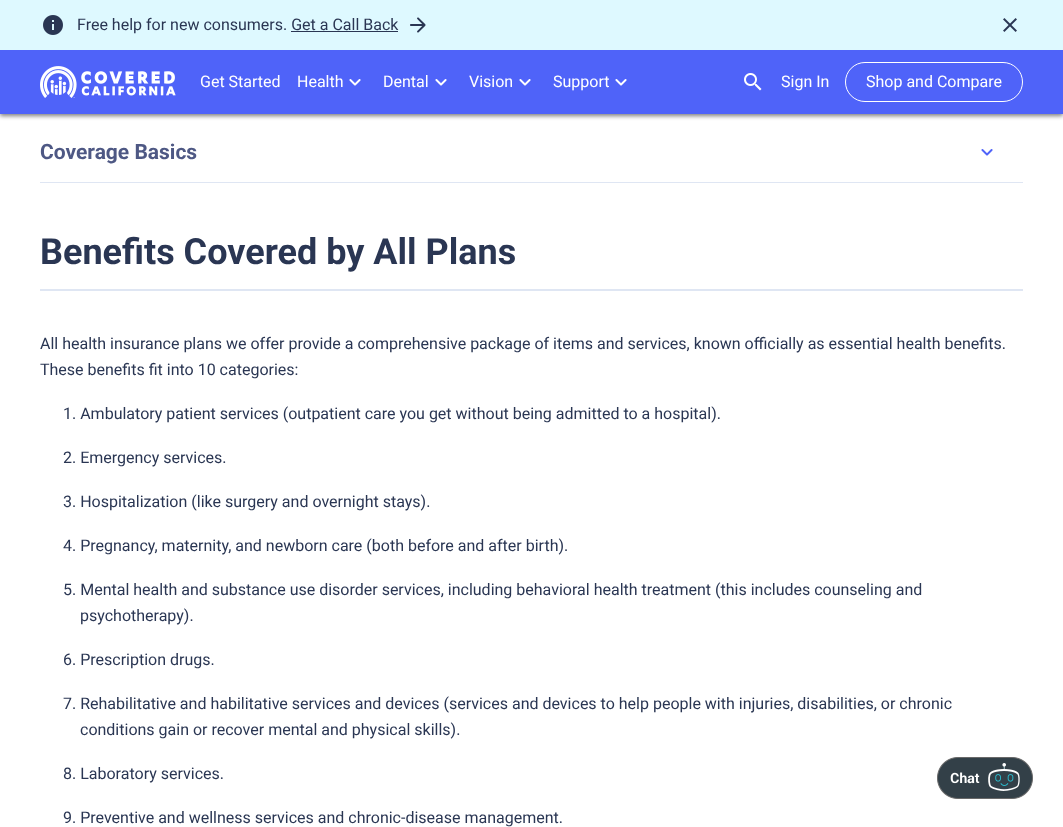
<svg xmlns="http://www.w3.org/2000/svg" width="1063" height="827">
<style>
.a{font:16px Roboto;fill:#2a3653}
.b{font:16px Roboto;fill:#fff}
.c{font:bold 21px Roboto;fill:#4e5884}
.d{font:bold 36px Roboto;fill:#2a3653}
</style>
<rect width="100%" height="100%" fill="#fff"/>
<path fill="#00000080" filter="blur(2px)" d="M0 2h1063v114H0z"/>
<path fill="#4f63f9" d="M0 50h1063v64H0z"/>
<path fill="#def9ff" d="M0 0h1063v50H0z"/>
<image href="1.png" x="43" y="15" width="20" height="20"/>
<path fill="#2a3653" d="M291 31h107v1H291z"/>
<image href="2.png" x="410" y="17" width="16" height="16"/>
<image href="3.png" x="1003" y="18" width="14" height="14"/>
<image href="4.png" x="40" y="66" width="136" height="32"/>
<image href="5.png" x="349" y="79" width="12" height="7"/>
<image href="5.png" x="435" y="79" width="12" height="7"/>
<image href="5.png" x="519" y="79" width="12" height="7"/>
<image href="5.png" x="615" y="79" width="12" height="7"/>
<image href="6.png" x="744" y="73" width="18" height="18"/>
<rect fill="none" stroke="#fff" x="845.5" y="62.5" width="177" height="39" rx="19.5"/>
<path fill="#dfe6f3" d="M40 182h983v1H40z"/>
<image href="7.png" x="981" y="149" width="12" height="7"/>
<path fill="#dfe6f3" d="M40 289h983v2H40z"/>
<image href="8.png" x="937" y="757" width="96" height="42"/>
<text class="a" x="77" y="30">Free help for new consumers. Get a Call Back</text>
<text class="b" x="200" y="87">Get Started</text>
<text class="b" x="297" y="87">Health</text>
<text class="b" x="383" y="87">Dental</text>
<text class="b" x="469" y="87">Vision</text>
<text class="b" x="553" y="87">Support</text>
<text class="b" x="781" y="87">Sign In</text>
<text class="b" x="866" y="87">Shop and Compare</text>
<text class="c" x="40" y="159">Coverage Basics</text>
<text class="d" x="40" y="264">Benefits Covered by All Plans</text>
<text class="a" x="40" y="349">All health insurance plans we offer provide a comprehensive package of items and services, known officially as essential health benefits.</text>
<text class="a" x="40" y="375">These benefits fit into 10 categories:</text>
<text class="a" x="63" y="419">1. Ambulatory patient services (outpatient care you get without being admitted to a hospital).</text>
<text class="a" x="63" y="463">2. Emergency services.</text>
<text class="a" x="63" y="507">3. Hospitalization (like surgery and overnight stays).</text>
<text class="a" x="63" y="551">4. Pregnancy, maternity, and newborn care (both before and after birth).</text>
<text class="a" x="63" y="595">5. Mental health and substance use disorder services, including behavioral health treatment (this includes counseling and</text>
<text class="a" x="80" y="621">psychotherapy).</text>
<text class="a" x="63" y="665">6. Prescription drugs.</text>
<text class="a" x="63" y="709">7. Rehabilitative and habilitative services and devices (services and devices to help people with injuries, disabilities, or chronic</text>
<text class="a" x="80" y="735">conditions gain or recover mental and physical skills).</text>
<text class="a" x="63" y="779">8. Laboratory services.</text>
<text class="a" x="63" y="823">9. Preventive and wellness services and chronic-disease management.</text>
</svg>
